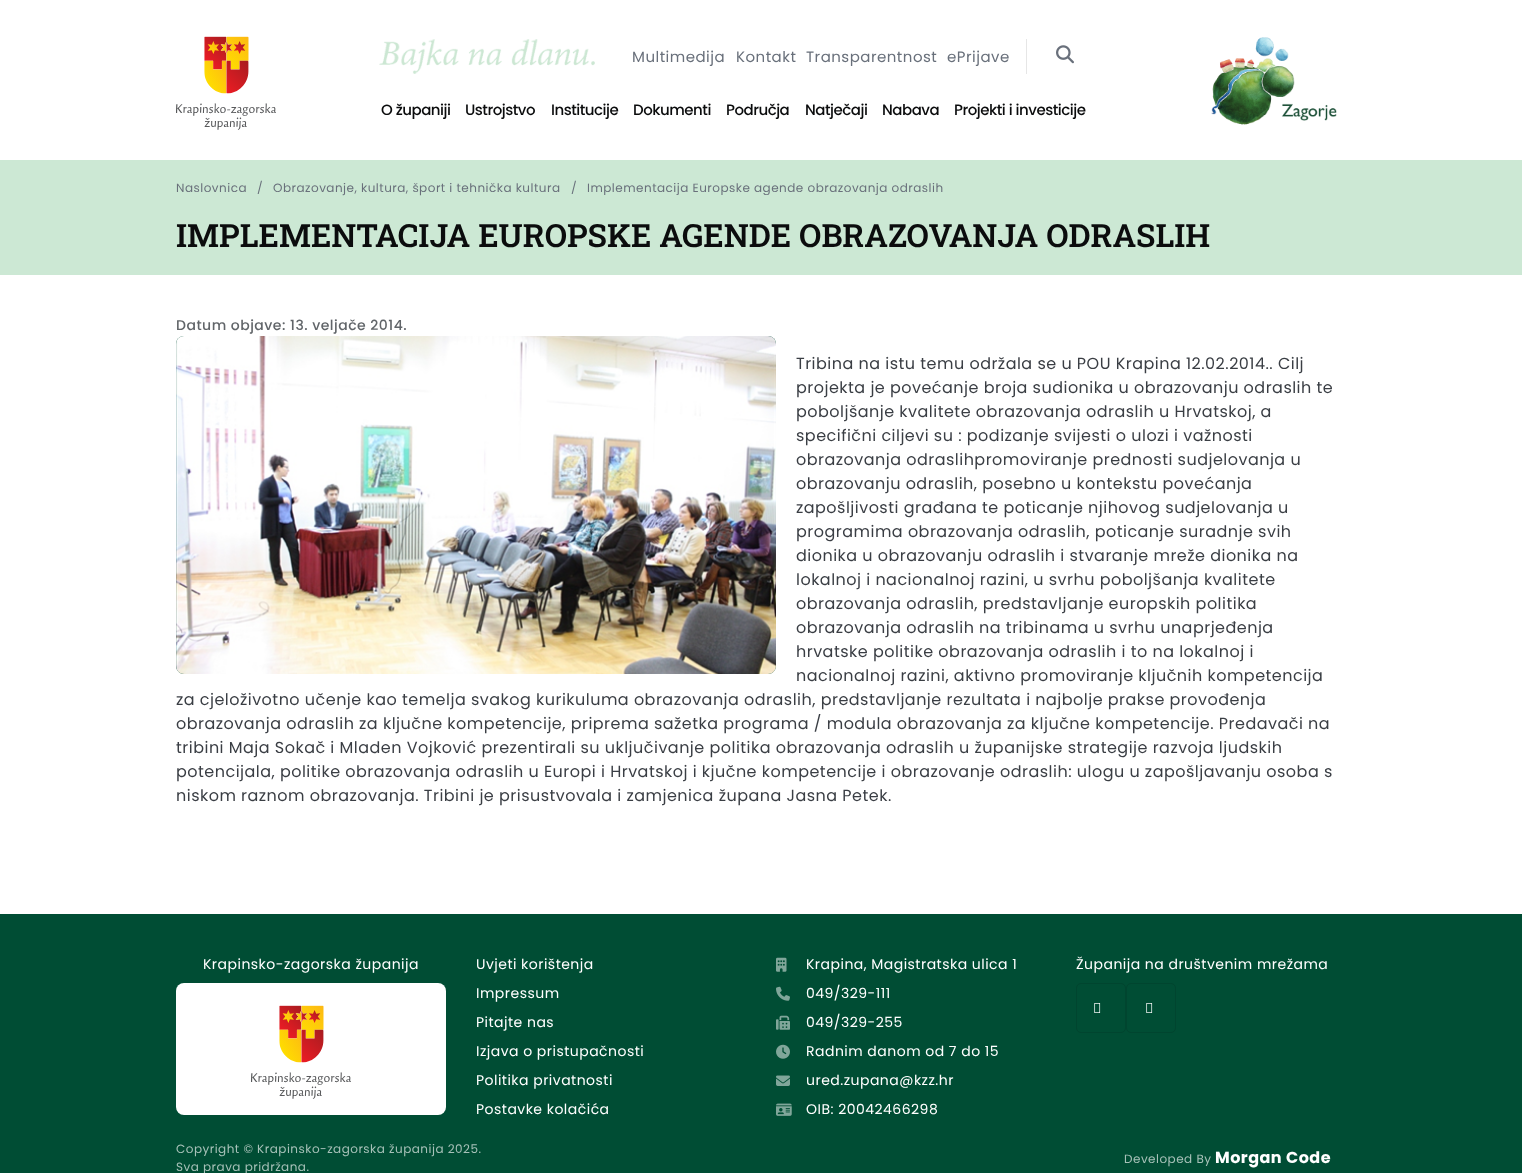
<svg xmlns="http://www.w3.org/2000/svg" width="1522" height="1173">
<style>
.a{font:15px Poppins;letter-spacing:0.48px;fill:#69707b}
.b{font:500 15px Poppins;letter-spacing:-0.5px;fill:#0b0c0d}
.c{font:12px Poppins;letter-spacing:0.48px;fill:#69707b}
.d{font:600 32px Roboto Slab;fill:#0b0c0d}
.e{font:500 14px Poppins;letter-spacing:0.48px;fill:#616569}
.f{font:16px Poppins;letter-spacing:0.48px;fill:#3a3e44}
.g{font:14px Poppins;letter-spacing:0.48px;fill:#fff}
.h{font:12px Poppins;letter-spacing:0.48px;fill:#a6c1b8}
.i{font:bold 16px Poppins;letter-spacing:0.48px;fill:#fff}
</style>
<defs>
<clipPath id="clip1"><path d="M587 180h357v15H587z"/></clipPath>
</defs>
<rect width="100%" height="100%" fill="#fff"/>
<image href="1.png" x="176" y="36" width="100" height="94"/>
<image href="2.png" x="379" y="39" width="216" height="35"/>
<path fill="#e6e6e6" d="M1026 39h1v35H1026z"/>
<image href="3.png" x="1056" y="45" width="18" height="19"/>
<image href="4.png" x="1211" y="37" width="126" height="88"/>
<path fill="#cce8d4" d="M0 160h1522v115H0z"/>
<rect fill="#004d34" x="176" y="336" width="600" height="338" rx="8"/>
<image href="5.png" x="176" y="336" width="600" height="338"/>
<path fill="#004d34" d="M0 914h1522v259H0z"/>
<rect fill="#fff" x="176" y="983" width="270" height="132" rx="8"/>
<image href="6.png" x="251" y="1005" width="100" height="94"/>
<image href="7.png" x="776" y="957" width="11" height="15"/>
<image href="8.png" x="776" y="986" width="14" height="15"/>
<image href="9.png" x="776" y="1015" width="14" height="15"/>
<image href="10.png" x="776" y="1044" width="14" height="15"/>
<image href="11.png" x="776" y="1075" width="14" height="11"/>
<image href="12.png" x="776" y="1103" width="16" height="13"/>
<rect fill="none" stroke="#00452f" x="1076.5" y="983.5" width="49" height="49" rx="4.5"/>
<image href="13.png" x="1094" y="1003" width="7" height="10"/>
<rect fill="none" stroke="#00452f" x="1126.5" y="983.5" width="49" height="49" rx="4.5"/>
<image href="13.png" x="1146" y="1003" width="7" height="10"/>
<text class="a" x="632" y="62">Multimedija</text>
<text class="a" x="736" y="62">Kontakt</text>
<text class="a" x="806" y="62">Transparentnost</text>
<text class="a" x="947" y="62">ePrijave</text>
<text class="b" x="381" y="115">O županiji</text>
<text class="b" x="465" y="115">Ustrojstvo</text>
<text class="b" x="551" y="115">Institucije</text>
<text class="b" x="633" y="115">Dokumenti</text>
<text class="b" x="726" y="115">Područja</text>
<text class="b" x="805" y="115">Natječaji</text>
<text class="b" x="882" y="115">Nabava</text>
<text class="b" x="954" y="115">Projekti i investicije</text>
<text class="c" x="176" y="192">Naslovnica</text>
<text class="c" x="257" y="192">/</text>
<text class="c" x="273" y="192">Obrazovanje, kultura, šport i tehnička kultura</text>
<text class="c" x="571" y="192">/</text>
<g clip-path="url(#clip1)">
<text class="c" x="587" y="192">Implementacija Europske agende obrazovanja odraslih</text>
</g>
<text class="d" x="176" y="247">IMPLEMENTACIJA EUROPSKE AGENDE OBRAZOVANJA ODRASLIH</text>
<text class="e" x="176" y="330">Datum objave: 13. veljače 2014.</text>
<text class="f" x="796" y="369">Tribina na istu temu održala se u POU Krapina 12.02.2014.. Cilj</text>
<text class="f" x="796" y="393">projekta je povećanje broja sudionika u obrazovanju odraslih te</text>
<text class="f" x="796" y="417">poboljšanje kvalitete obrazovanja odraslih u Hrvatskoj, a</text>
<text class="f" x="796" y="441">specifični ciljevi su : podizanje svijesti o ulozi i važnosti</text>
<text class="f" x="796" y="465">obrazovanja odraslihpromoviranje prednosti sudjelovanja u</text>
<text class="f" x="796" y="489">obrazovanju odraslih, posebno u kontekstu povećanja</text>
<text class="f" x="796" y="513">zapošljivosti građana te poticanje njihovog sudjelovanja u</text>
<text class="f" x="796" y="537">programima obrazovanja odraslih, poticanje suradnje svih</text>
<text class="f" x="796" y="561">dionika u obrazovanju odraslih i stvaranje mreže dionika na</text>
<text class="f" x="796" y="585">lokalnoj i nacionalnoj razini, u svrhu poboljšanja kvalitete</text>
<text class="f" x="796" y="609">obrazovanja odraslih, predstavljanje europskih politika</text>
<text class="f" x="796" y="633">obrazovanja odraslih na tribinama u svrhu unaprjeđenja</text>
<text class="f" x="796" y="657">hrvatske politike obrazovanja odraslih i to na lokalnoj i</text>
<text class="f" x="796" y="681">nacionalnoj razini, aktivno promoviranje ključnih kompetencija</text>
<text class="f" x="176" y="705">za cjeloživotno učenje kao temelja svakog kurikuluma obrazovanja odraslih, predstavljanje rezultata i najbolje prakse provođenja</text>
<text class="f" x="176" y="729">obrazovanja odraslih za ključne kompetencije, priprema sažetka programa / modula obrazovanja za ključne kompetencije. Predavači na</text>
<text class="f" x="176" y="753">tribini Maja Sokač i Mladen Vojković prezentirali su uključivanje politika obrazovanja odraslih u županijske strategije razvoja ljudskih</text>
<text class="f" x="176" y="777">potencijala, politike obrazovanja odraslih u Europi i Hrvatskoj i kjučne kompetencije i obrazovanje odraslih: ulogu u zapošljavanju osoba s</text>
<text class="f" x="176" y="801">niskom raznom obrazovanja. Tribini je prisustvovala i zamjenica župana Jasna Petek.</text>
<text class="g" x="203" y="969">Krapinsko-zagorska županija</text>
<text class="g" x="476" y="969">Uvjeti korištenja</text>
<text class="g" x="476" y="998">Impressum</text>
<text class="g" x="476" y="1027">Pitajte nas</text>
<text class="g" x="476" y="1056">Izjava o pristupačnosti</text>
<text class="g" x="476" y="1085">Politika privatnosti</text>
<text class="g" x="476" y="1114">Postavke kolačića</text>
<text class="g" x="806" y="969">Krapina, Magistratska ulica 1</text>
<text class="g" x="806" y="998">049/329-111</text>
<text class="g" x="806" y="1027">049/329-255</text>
<text class="g" x="806" y="1056">Radnim danom od 7 do 15</text>
<text class="g" x="806" y="1085">ured.zupana@kzz.hr</text>
<text class="g" x="806" y="1114">OIB: 20042466298</text>
<text class="g" x="1076" y="969">Županija na društvenim mrežama</text>
<text class="h" x="176" y="1153">Copyright © Krapinsko-zagorska županija 2025.</text>
<text class="h" x="176" y="1171">Sva prava pridržana.</text>
<text class="h" x="1124" y="1163">Developed By</text>
<text class="i" x="1215" y="1163">Morgan Code</text>
</svg>
